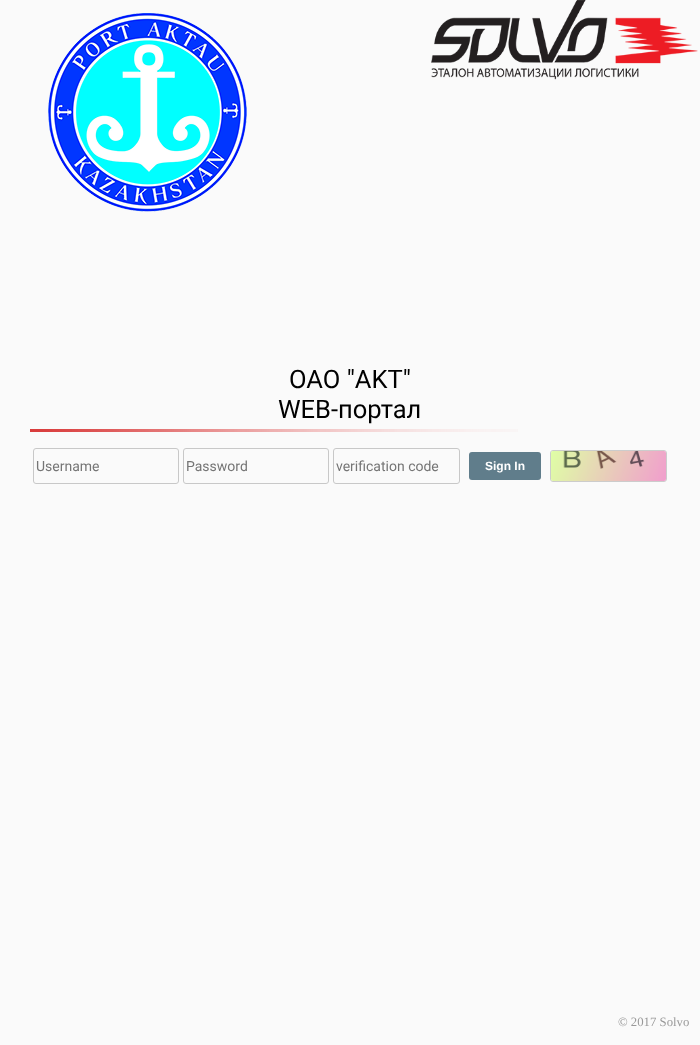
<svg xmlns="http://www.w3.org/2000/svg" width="700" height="1045">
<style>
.a{font:25.5px Roboto;fill:#000}
.b{font:14px Roboto;fill:#757575}
.c{font:bold 12px Liberation Sans;fill:#fff}
.d{font:12.75px Liberation Serif;fill:#999}
</style>
<rect width="100%" height="100%" fill="#fafafa"/>
<image href="1.png" x="48" y="13" width="199" height="199"/>
<image href="2.png" x="431" y="0" width="267" height="80"/>
<image href="3.png" x="30" y="429" width="488" height="3"/>
<rect fill="none" stroke="#c8c8c8" x="33.5" y="448.5" width="145" height="35" rx="2.5"/>
<rect fill="none" stroke="#c8c8c8" x="183.5" y="448.5" width="145" height="35" rx="2.5"/>
<rect fill="none" stroke="#c8c8c8" x="333.5" y="448.5" width="126" height="35" rx="2.5"/>
<rect fill="#607d8b" x="469" y="452" width="72" height="28" rx="3"/>
<rect fill="none" stroke="#ccc" x="550.5" y="450.5" width="116" height="31" rx="2.5"/>
<image href="4.png" x="551" y="451" width="115" height="30"/>
<text class="a" x="289" y="388">ОАО "AKT"</text>
<text class="a" x="278" y="418">WEB-портал</text>
<text class="b" x="36" y="471">Username</text>
<text class="b" x="186" y="471">Password</text>
<text class="b" x="336" y="471">verification code</text>
<text class="c" x="485" y="470">Sign In</text>
<text class="d" x="618" y="1026">© 2017 Solvo</text>
</svg>
